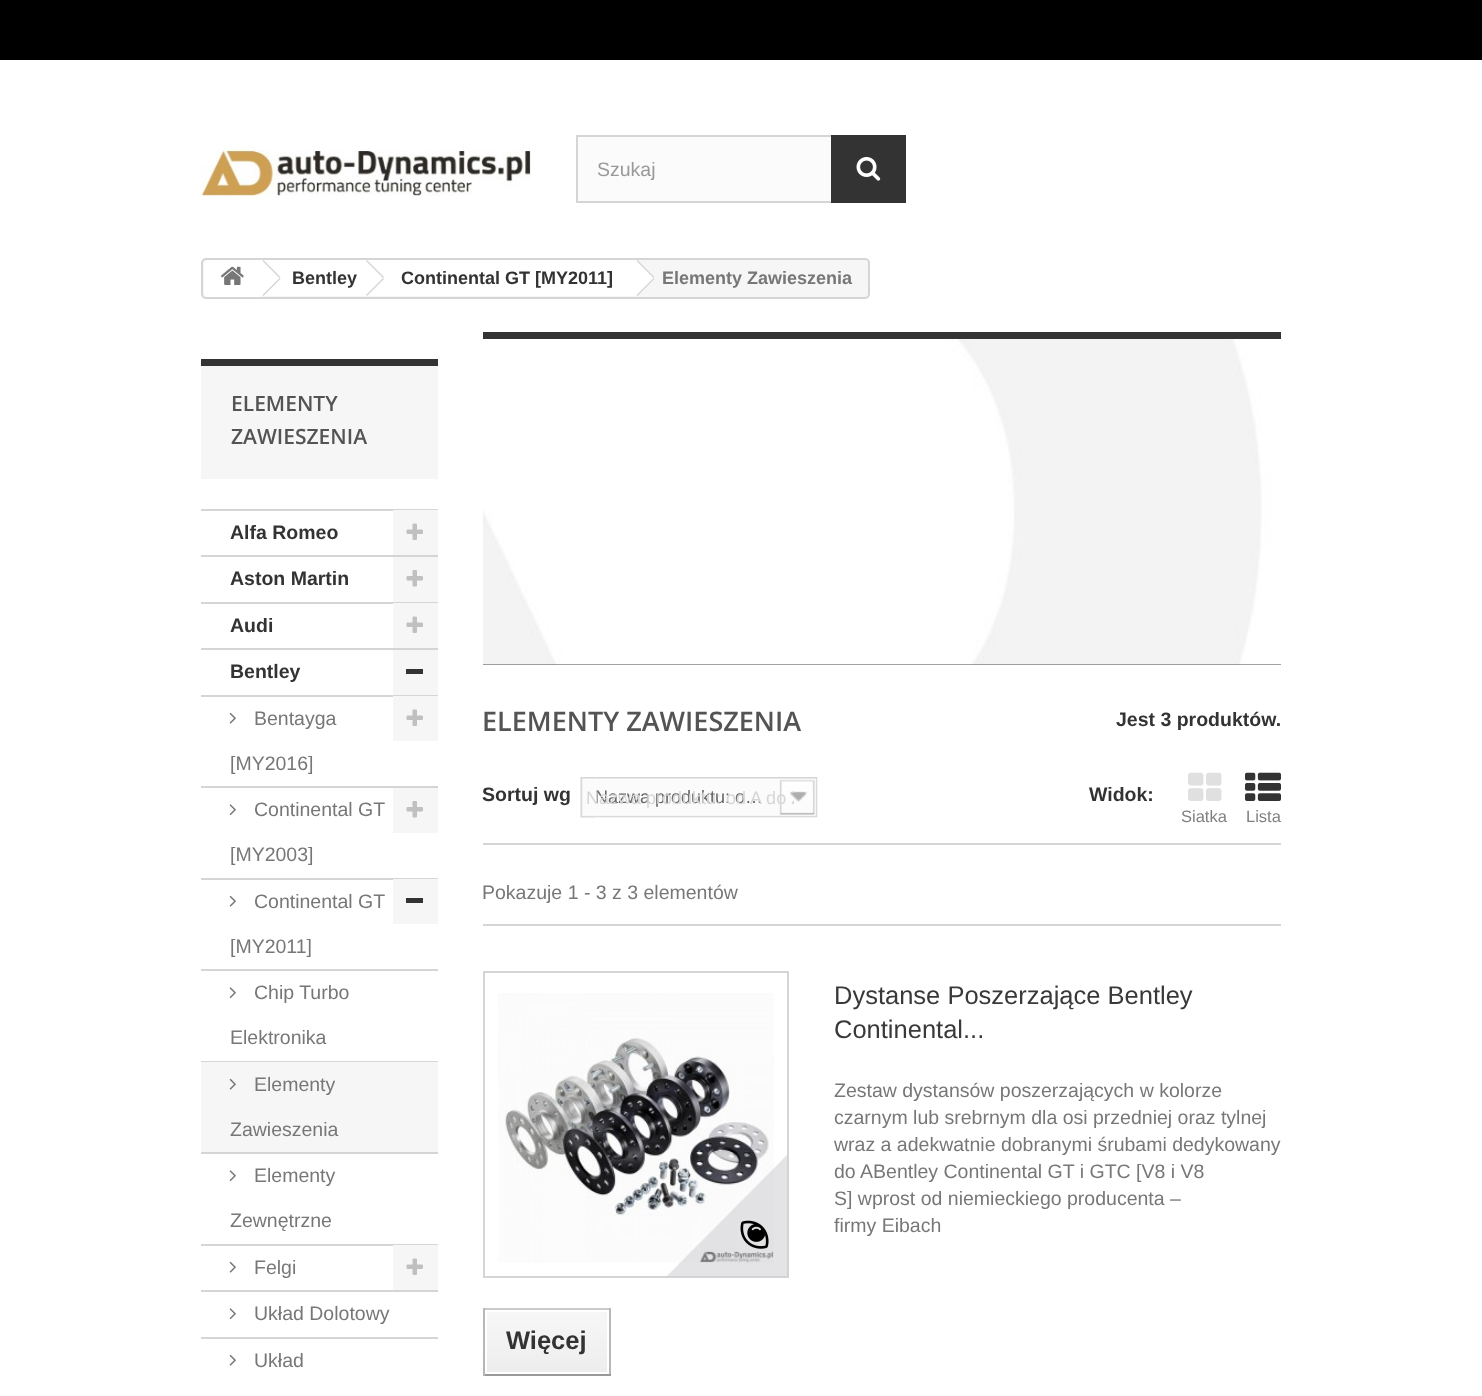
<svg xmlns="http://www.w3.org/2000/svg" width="1482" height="1396">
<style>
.a{font:19.5px Liberation Sans;fill:#999}
.b{font:bold 18px Liberation Sans;fill:#333}
.c{font:bold 18px Liberation Sans;fill:#777}
.d{font:600 21px Open Sans;fill:#555454}
.e{font:bold 19.5px Liberation Sans;fill:#333}
.f{font:19.5px Liberation Sans;fill:#777}
.g{font:600 27px Open Sans;fill:#555454}
.h{font:18px Liberation Sans;fill:#666}
.i{font:18px Liberation Sans;fill:#d6d6d6}
.j{font:16.5px Liberation Sans;fill:#808080}
.k{font:25.5px Liberation Sans;fill:#3a3939}
.l{font:bold 25.5px Liberation Sans;fill:#333}
</style>
<defs>
<clipPath id="clip1"><path d="M465 1044h323v233H465z"/></clipPath>
<linearGradient id="g1" gradientUnits="userSpaceOnUse" x1="547" y1="1311" x2="547" y2="1373"><stop offset="0" stop-color="#f7f7f7"/><stop offset="1" stop-color="#ededed"/></linearGradient>
<clipPath id="clip2"><path d="M587 786h207v24H587z"/></clipPath>
</defs>
<rect width="100%" height="100%" fill="#fff"/>
<path fill="#000" d="M0 0h1482v60H0z"/>
<image href="1.png" x="201" y="149" width="330" height="47"/>
<path fill="#fbfbfb" d="M578 137h253v64H578z"/>
<path fill="none" stroke="#d6d4d4" stroke-width="2" d="M577 136h328v66H577z"/>
<path fill="#333" d="M831 135h75v68H831z"/>
<image href="2.png" x="856" y="157" width="25" height="24"/>
<rect fill="#f6f6f6" stroke="#d6d4d4" stroke-width="2" x="202" y="259" width="667" height="39" rx="4"/>
<path fill="#fff" d="M209 260h52v37h-52c-3 0-5-2-5-5v-27c0-3 2-5 5-5z"/>
<image href="3.png" x="221" y="266" width="23" height="19"/>
<path fill="#fff" d="M261 260h107v36H261z"/>
<path fill="#d6d4d4" d="M263.5 260l17 17l-1 1l-17-17zm16 18l1 1l-17 17l-1-1z"/>
<path fill="#fff" d="M383 261l15 14.5c1 1.5 1 3.5 0 4.5l-15 15c-1 1-3 1-4 0l-15-15c-1-1-1-3 0-4.5l15-14.5c1-1.5 3-1.5 4 0z"/>
<path fill="#fff" d="M368 260h267v36H368z"/>
<path fill="#d6d4d4" d="M367 260l17 17l-1 1l-17-17zm16 18l1 1l-17 17l-1-1z"/>
<path fill="#fff" d="M638.5 261l15 14.5c1.5 1.5 1.5 3.5 0 4.5l-15 15c-1 1-3 1-4 0l-15-15c-1-1-1-3 0-4.5l15-14.5c1-1.5 3-1.5 4 0z"/>
<path fill="#d6d4d4" d="M637.5 260l17 17l-1 1l-17-17zm16 18l1 1l-17 17l-1-1z"/>
<path fill="#f6f6f6" d="M201 366h237v113H201z"/>
<path fill="#333" d="M201 359h237v7H201z"/>
<path fill="#d6d4d4" d="M201 509h237v2H201z"/>
<path fill="#d6d4d4" d="M201 555h237v2H201z"/>
<path fill="#f6f6f6" d="M393 510h45v45H393z"/>
<image href="4.png" x="406" y="523" width="17" height="17"/>
<path fill="#d6d4d4" d="M201 602h237v2H201z"/>
<path fill="#f6f6f6" d="M393 557h45v45H393z"/>
<image href="5.png" x="406" y="570" width="17" height="17"/>
<path fill="#d6d4d4" d="M201 648h237v2H201z"/>
<path fill="#f6f6f6" d="M393 603h45v45H393z"/>
<image href="4.png" x="406" y="616" width="17" height="17"/>
<path fill="#d6d4d4" d="M201 695h237v2H201z"/>
<path fill="#f6f6f6" d="M393 650h45v45H393z"/>
<path fill="#333" d="M406 669h17v5H406z"/>
<path fill="#d6d4d4" d="M201 786h237v2H201z"/>
<image href="6.png" x="229" y="712" width="7" height="12"/>
<path fill="#f6f6f6" d="M393 696h45v45H393z"/>
<image href="4.png" x="406" y="709" width="17" height="17"/>
<path fill="#d6d4d4" d="M201 878h237v2H201z"/>
<image href="7.png" x="229" y="804" width="7" height="12"/>
<path fill="#f6f6f6" d="M393 788h45v45H393z"/>
<image href="5.png" x="406" y="801" width="17" height="17"/>
<path fill="#d6d4d4" d="M201 969h237v2H201z"/>
<image href="6.png" x="229" y="895" width="7" height="12"/>
<path fill="#f6f6f6" d="M393 879h45v45H393z"/>
<path fill="#333" d="M406 898h17v5H406z"/>
<path fill="#d6d4d4" d="M201 1061h237v1H201z"/>
<image href="7.png" x="229" y="987" width="7" height="12"/>
<path fill="#f6f6f6" d="M201 1062h237v90H201z"/>
<path fill="#d6d4d4" d="M201 1152h237v2H201z"/>
<image href="8.png" x="229" y="1078" width="7" height="12"/>
<path fill="#d6d4d4" d="M201 1244h237v2H201z"/>
<image href="7.png" x="229" y="1170" width="7" height="12"/>
<path fill="#d6d4d4" d="M201 1290h237v2H201z"/>
<image href="6.png" x="229" y="1261" width="7" height="12"/>
<path fill="#f6f6f6" d="M393 1245h45v45H393z"/>
<image href="4.png" x="406" y="1258" width="17" height="17"/>
<path fill="#d6d4d4" d="M201 1337h237v2H201z"/>
<image href="7.png" x="229" y="1308" width="7" height="12"/>
<image href="6.png" x="229" y="1354" width="7" height="12"/>
<path fill="#333" d="M483 332h798v7H483z"/>
<path fill="#464646" d="M483 664h798v1H483z"/>
<image href="9.png" x="483" y="339" width="798" height="326"/>
<path fill="#d6d4d4" d="M483 843h798v2H483z"/>
<image href="10.png" x="580" y="777" width="16" height="41"/>
<image href="11.png" x="595" y="777" width="223" height="41"/>
<image href="12.png" x="1188" y="772" width="34" height="29"/>
<image href="13.png" x="1245" y="772" width="36" height="29"/>
<path fill="#d6d4d4" d="M483 924h798v2H483z"/>
<path fill="none" stroke="#d6d4d4" stroke-width="2" d="M484 972h304v305H484z"/>
<image href="14.png" x="498" y="993" width="276" height="270"/>
<g clip-path="url(#clip1)">
<path fill="#d0d0d391" d="M795 1147l91 90l-138 138l-90-90z"/>
</g>
<image href="15.png" x="740" y="1220" width="29" height="29"/>
<path fill="#cacaca" d="M483 1308h128v2H483z"/>
<path fill="#b7b7b7" d="M609 1308h2v68H609z"/>
<path fill="#9a9a9a" d="M483 1374h128v2H483z"/>
<path fill="#b7b7b7" d="M483 1308h2v68H483z"/>
<path fill="url(#g1)" d="M487 1312h120v60H487z"/>
<text class="a" x="597" y="176">Szukaj</text>
<text class="b" x="292" y="284">Bentley</text>
<text class="b" x="401" y="284">Continental GT [MY2011]</text>
<text class="c" x="662" y="284">Elementy Zawieszenia</text>
<text class="d" x="231" y="411">ELEMENTY</text>
<text class="d" x="231" y="444">ZAWIESZENIA</text>
<text class="e" x="230" y="539">Alfa Romeo</text>
<text class="e" x="230" y="585">Aston Martin</text>
<text class="e" x="230" y="632">Audi</text>
<text class="e" x="230" y="678">Bentley</text>
<text class="f" x="254" y="725">Bentayga</text>
<text class="f" x="230" y="770">[MY2016]</text>
<text class="f" x="254" y="816">Continental GT</text>
<text class="f" x="230" y="861">[MY2003]</text>
<text class="f" x="254" y="908">Continental GT</text>
<text class="f" x="230" y="953">[MY2011]</text>
<text class="f" x="254" y="999">Chip Turbo</text>
<text class="f" x="230" y="1044">Elektronika</text>
<text class="f" x="254" y="1091">Elementy</text>
<text class="f" x="230" y="1136">Zawieszenia</text>
<text class="f" x="254" y="1182">Elementy</text>
<text class="f" x="230" y="1227">Zewnętrzne</text>
<text class="f" x="254" y="1274">Felgi</text>
<text class="f" x="254" y="1320">Układ Dolotowy</text>
<text class="f" x="254" y="1367">Układ</text>
<text class="g" x="482" y="731">ELEMENTY ZAWIESZENIA</text>
<text class="e" x="1116" y="726">Jest 3 produktów.</text>
<text class="e" x="482" y="801">Sortuj wg</text>
<text class="h" x="595" y="803">Nazwa produktu: o…</text>
<g clip-path="url(#clip2)">
<text class="i" x="586" y="804">Nazwa produktu: od A do Z</text>
</g>
<text class="e" x="1089" y="801">Widok:</text>
<text class="j" x="1181" y="822">Siatka</text>
<text class="j" x="1246" y="822">Lista</text>
<text class="f" x="482" y="899">Pokazuje 1 - 3 z 3 elementów</text>
<text class="k" x="834" y="1004">Dystanse Poszerzające Bentley</text>
<text class="k" x="834" y="1038">Continental...</text>
<text class="f" x="834" y="1097">Zestaw dystansów poszerzających w kolorze</text>
<text class="f" x="834" y="1124">czarnym lub srebrnym dla osi przedniej oraz tylnej</text>
<text class="f" x="834" y="1151">wraz a adekwatnie dobranymi śrubami dedykowany</text>
<text class="f" x="834" y="1178">do ABentley Continental GT i GTC [V8 i V8</text>
<text class="f" x="834" y="1205">S] wprost od niemieckiego producenta –</text>
<text class="f" x="834" y="1232">firmy Eibach</text>
<text class="l" x="506" y="1349">Więcej</text>
</svg>
